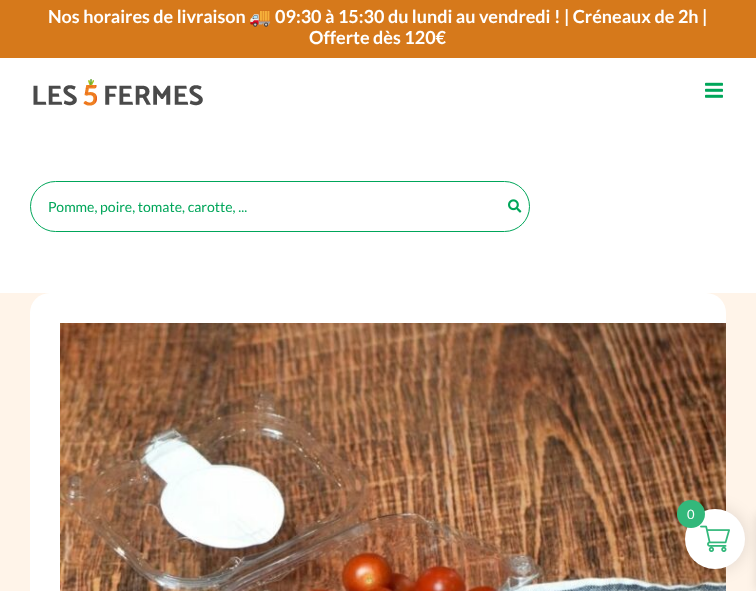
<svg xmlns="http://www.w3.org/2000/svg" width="756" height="591">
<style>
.a{font:bold 18px Lato;fill:#fff}
.b{font:bold 18px Noto Color Emoji;fill:#fff}
.c{font:14px Lato;fill:#00a65a}
.d{font:13px Lato;fill:#fff}
</style>
<rect width="100%" height="100%" fill="#fff"/>
<path fill="#d6791b" d="M0 0h756v58H0z"/>
<image href="1.png" x="33" y="79" width="170" height="27"/>
<image href="2.png" x="705" y="82" width="18" height="16"/>
<rect fill="none" stroke="#00a65a" x="30.5" y="181.5" width="499" height="50" rx="25"/>
<image href="3.png" x="508" y="199" width="14" height="14"/>
<path fill="#fff4e9" d="M0 293h756v298H0z"/>
<rect fill="#fff" x="30" y="293" width="696" height="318" rx="20"/>
<image href="4.png" x="60" y="323" width="666" height="268"/>
<rect fill="#0000001a" filter="blur(7.5px)" x="683" y="507" width="64" height="64" rx="32"/>
<path fill="#0000001a" filter="blur(5px)" d="M756 514h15v76H756z"/>
<circle fill="#fff" cx="715" cy="539" r="30"/>
<image href="5.png" x="700" y="525" width="30" height="27"/>
<circle fill="#33b87b" cx="691" cy="514" r="14"/>
<text class="a" x="48" y="23">Nos horaires de livraison</text>
<text class="b" x="249" y="23">🚚</text>
<text class="a" x="275" y="23">09:30 à 15:30 du lundi au vendredi ! | Créneaux de 2h |</text>
<text class="a" x="309" y="44">Offerte dès 120€</text>
<text class="c" x="48" y="212">Pomme, poire, tomate, carotte, ...</text>
<text class="d" x="687" y="519">0</text>
</svg>
